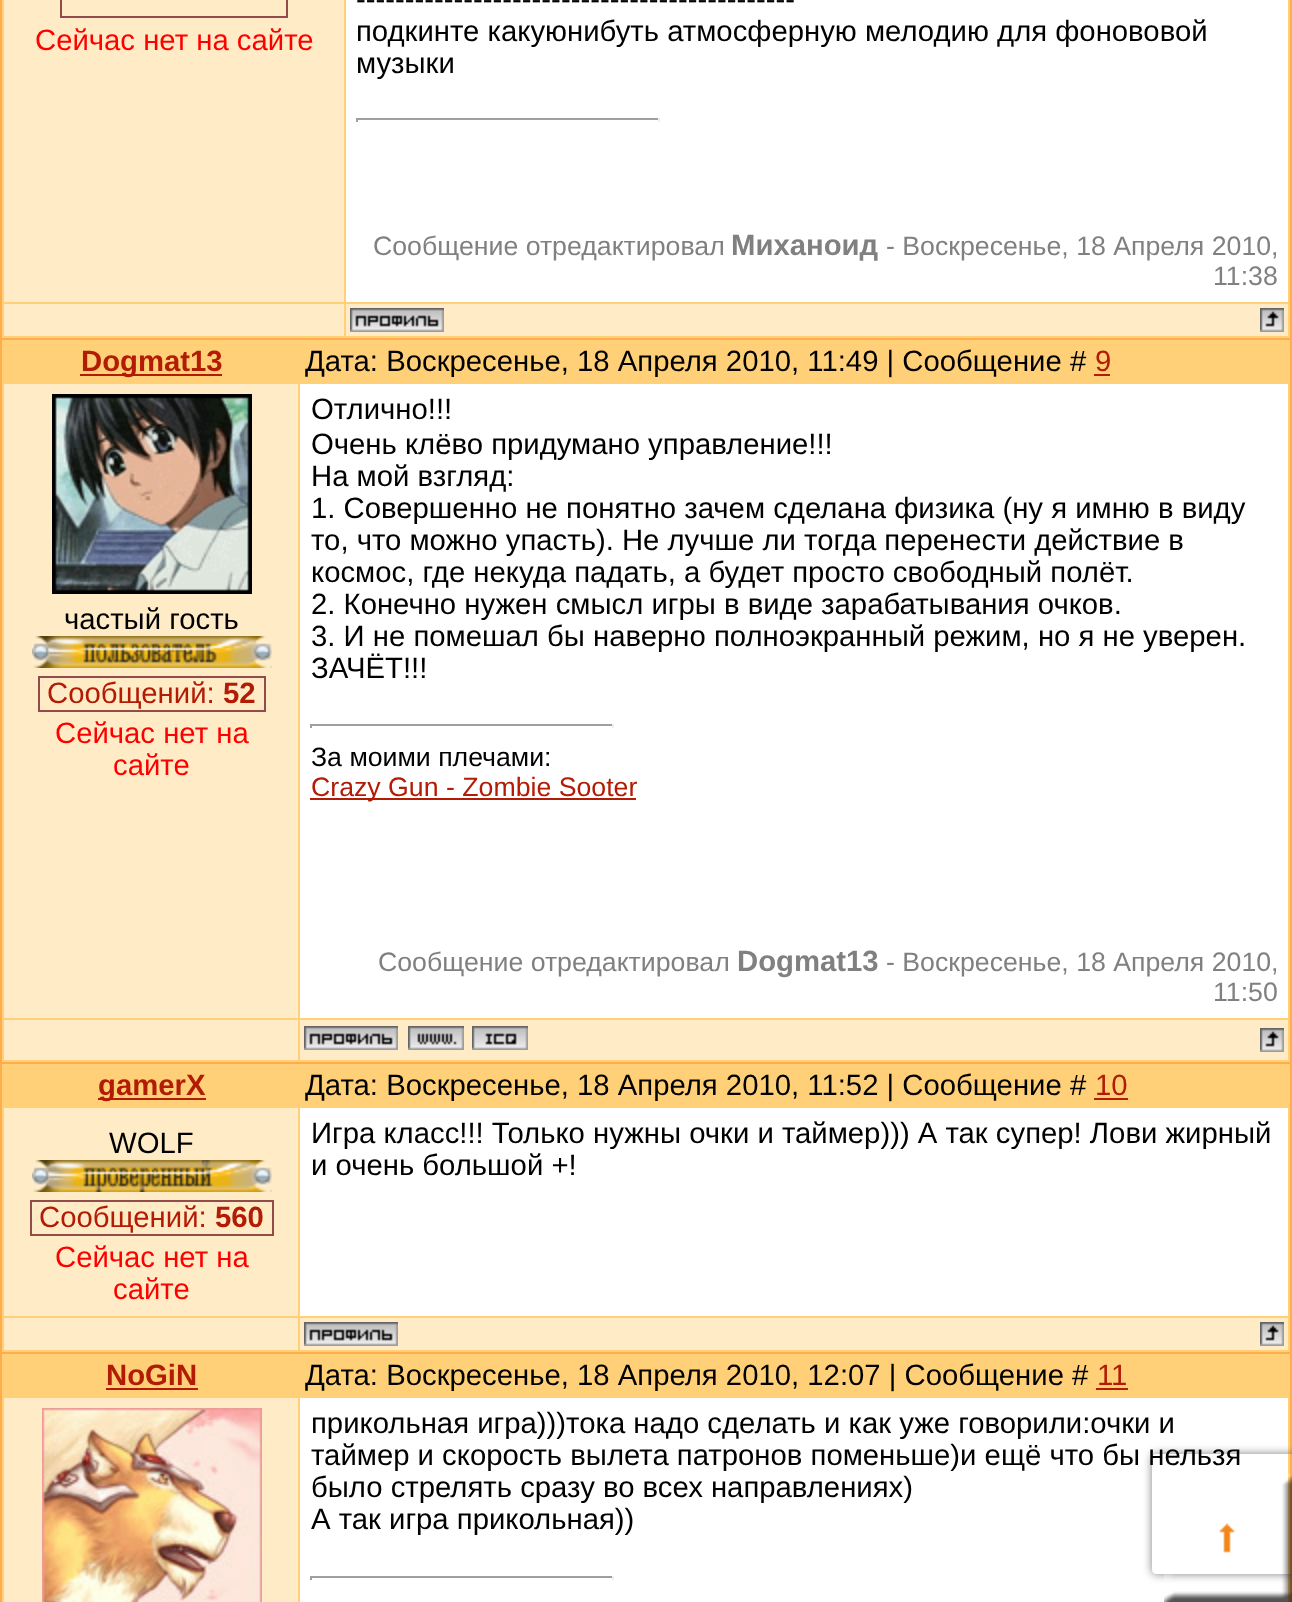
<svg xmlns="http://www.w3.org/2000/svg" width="1292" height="1602">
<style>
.a{font:29.3px Liberation Sans;fill:#f00}
.b{font:29.3px Liberation Sans;fill:#000}
.c{font:26.7px Liberation Sans;fill:#808080}
.d{font:bold 29.3px Liberation Sans;fill:#808080}
.e{font:bold 29.3px Liberation Sans;fill:#b21b04}
.f{font:29.3px Liberation Sans;fill:#b21b04}
.g{font:26.7px Liberation Sans;fill:#000}
.h{font:26.7px Liberation Sans;fill:#b21b04}
</style>
<defs>
<clipPath id="clip1"><path d="M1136 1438h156v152h-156zm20 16h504c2 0 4 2 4 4v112c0 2-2 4-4 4h-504c-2 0-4-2-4-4v-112c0-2 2-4 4-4z" clip-rule="evenodd"/></clipPath>
</defs>
<rect width="100%" height="100%" fill="#ffac4c"/>
<path fill="#ffd077" d="M2 0h1288v338H2z"/>
<path fill="#ffecc7" d="M4 0h340v302H4z"/>
<path fill="#934a4a" d="M60 16h186v2H60z"/>
<path fill="#934a4a" d="M60 0h2v18H60z"/>
<path fill="#934a4a" d="M286 0h2v18H286z"/>
<path fill="#934a4a" d="M246 16h42v2H246z"/>
<path fill="#fff" d="M346 0h942v302H346z"/>
<path fill="#9f9f9f" d="M356 118h304v2H356z"/>
<path fill="#eee" d="M658 118h2v4H658z"/>
<path fill="#9f9f9f" d="M356 118h2v4H356z"/>
<path fill="#ffecc7" d="M4 304h340v32H4z"/>
<path fill="#ffecc7" d="M346 304h942v32H346z"/>
<image href="1.png" x="350" y="308" width="94" height="24"/>
<image href="2.png" x="1260" y="308" width="24" height="24"/>
<path fill="#ffd077" d="M2 340h1288v722H2z"/>
<path fill="#b21b04" d="M80 374h142v2H80z"/>
<path fill="#b21b04" d="M1094 374h16v2H1094z"/>
<path fill="#ffecc7" d="M4 384h294v634H4z"/>
<image href="3.png" x="52" y="394" width="200" height="200"/>
<image href="4.png" x="32" y="636" width="240" height="32"/>
<path fill="#934a4a" d="M38 710h186v2H38z"/>
<path fill="#934a4a" d="M38 676h228v2H38z"/>
<path fill="#934a4a" d="M38 676h2v36H38z"/>
<path fill="#934a4a" d="M264 676h2v36H264z"/>
<path fill="#934a4a" d="M224 710h42v2H224z"/>
<path fill="#fff" d="M300 384h988v634H300z"/>
<path fill="#9f9f9f" d="M310 724h304v2H310z"/>
<path fill="#eee" d="M612 724h2v4H612z"/>
<path fill="#9f9f9f" d="M310 724h2v4H310z"/>
<path fill="#b21b04" d="M310 798h326v2H310z"/>
<path fill="#ffecc7" d="M4 1020h294v40H4z"/>
<path fill="#ffecc7" d="M300 1020h988v40H300z"/>
<image href="1.png" x="304" y="1026" width="94" height="24"/>
<image href="5.png" x="408" y="1026" width="56" height="24"/>
<image href="6.png" x="472" y="1026" width="56" height="24"/>
<image href="2.png" x="1260" y="1028" width="24" height="24"/>
<path fill="#ffd077" d="M2 1064h1288v288H2z"/>
<path fill="#b21b04" d="M98 1098h108v2H98z"/>
<path fill="#b21b04" d="M1094 1098h34v2H1094z"/>
<path fill="#ffecc7" d="M4 1108h294v208H4z"/>
<image href="7.png" x="32" y="1160" width="240" height="32"/>
<path fill="#934a4a" d="M30 1234h184v2H30z"/>
<path fill="#934a4a" d="M30 1200h244v2H30z"/>
<path fill="#934a4a" d="M30 1200h2v36H30z"/>
<path fill="#934a4a" d="M272 1200h2v36H272z"/>
<path fill="#934a4a" d="M214 1234h60v2H214z"/>
<path fill="#fff" d="M300 1108h988v208H300z"/>
<path fill="#ffecc7" d="M4 1318h294v32H4z"/>
<path fill="#ffecc7" d="M300 1318h988v32H300z"/>
<image href="1.png" x="304" y="1322" width="94" height="24"/>
<image href="2.png" x="1260" y="1322" width="24" height="24"/>
<path fill="#ffd077" d="M2 1354h1288v248H2z"/>
<path fill="#b21b04" d="M106 1388h92v2H106z"/>
<path fill="#b21b04" d="M1096 1388h32v2H1096z"/>
<path fill="#ffecc7" d="M4 1398h294v204H4z"/>
<image href="8.png" x="42" y="1408" width="220" height="194"/>
<path fill="#fff" d="M300 1398h988v204H300z"/>
<path fill="#9f9f9f" d="M310 1576h304v2H310z"/>
<path fill="#eee" d="M612 1576h2v4H612z"/>
<path fill="#9f9f9f" d="M310 1576h2v4H310z"/>
<g clip-path="url(#clip1)">
<rect fill="#808080" filter="blur(5px)" x="1152" y="1454" width="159" height="120" rx="4"/>
</g>
<image href="9.png" x="1164" y="1474" width="128" height="128"/>
<text class="a" x="35" y="50">Сейчас нет на сайте</text>
<text class="b" x="356" y="9">---------------------------------------------</text>
<text class="b" x="356" y="41">подкинте какуюнибуть атмосферную мелодию для фонововой</text>
<text class="b" x="356" y="73">музыки</text>
<text class="c" x="373" y="255">Сообщение отредактировал</text>
<text class="d" x="731" y="255">Миханоид</text>
<text class="c" x="886" y="255">- Воскресенье, 18 Апреля 2010,</text>
<text class="c" x="1213" y="285">11:38</text>
<text class="e" x="81" y="371">Dogmat13</text>
<text class="b" x="305" y="371">Дата: Воскресенье, 18 Апреля 2010, 11:49 | Сообщение #</text>
<text class="f" x="1095" y="371">9</text>
<text class="b" x="64" y="629">частый гость</text>
<text class="f" x="47" y="703">Сообщений:</text>
<text class="e" x="223" y="703">52</text>
<text class="a" x="55" y="743">Сейчас нет на</text>
<text class="a" x="113" y="775">сайте</text>
<text class="b" x="311" y="419">Отлично!!!</text>
<text class="b" x="311" y="454">Очень клёво придумано управление!!!</text>
<text class="b" x="311" y="486">На мой взгляд:</text>
<text class="b" x="311" y="518">1. Совершенно не понятно зачем сделана физика (ну я имню в виду</text>
<text class="b" x="311" y="550">то, что можно упасть). Не лучше ли тогда перенести действие в</text>
<text class="b" x="311" y="582">космос, где некуда падать, а будет просто свободный полёт.</text>
<text class="b" x="311" y="614">2. Конечно нужен смысл игры в виде зарабатывания очков.</text>
<text class="b" x="311" y="646">3. И не помешал бы наверно полноэкранный режим, но я не уверен.</text>
<text class="b" x="311" y="678">ЗАЧЁТ!!!</text>
<text class="g" x="311" y="766">За моими плечами:</text>
<text class="h" x="311" y="796">Crazy Gun - Zombie Sooter</text>
<text class="c" x="378" y="971">Сообщение отредактировал</text>
<text class="d" x="737" y="971">Dogmat13</text>
<text class="c" x="886" y="971">- Воскресенье, 18 Апреля 2010,</text>
<text class="c" x="1213" y="1001">11:50</text>
<text class="e" x="98" y="1095">gamerX</text>
<text class="b" x="305" y="1095">Дата: Воскресенье, 18 Апреля 2010, 11:52 | Сообщение #</text>
<text class="f" x="1095" y="1095">10</text>
<text class="b" x="109" y="1153">WOLF</text>
<text class="f" x="39" y="1227">Сообщений:</text>
<text class="e" x="215" y="1227">560</text>
<text class="a" x="55" y="1267">Сейчас нет на</text>
<text class="a" x="113" y="1299">сайте</text>
<text class="b" x="311" y="1143">Игра класс!!! Только нужны очки и таймер))) А так супер! Лови жирный</text>
<text class="b" x="311" y="1175">и очень большой +!</text>
<text class="e" x="106" y="1385">NoGiN</text>
<text class="b" x="305" y="1385">Дата: Воскресенье, 18 Апреля 2010, 12:07 | Сообщение #</text>
<text class="f" x="1097" y="1385">11</text>
<text class="b" x="311" y="1433">прикольная игра)))тока надо сделать и как уже говорили:очки и</text>
<text class="b" x="311" y="1465">таймер и скорость вылета патронов поменьше)и ещё что бы нельзя</text>
<text class="b" x="311" y="1497">было стрелять сразу во всех направлениях)</text>
<text class="b" x="311" y="1529">А так игра прикольная))</text>
</svg>
